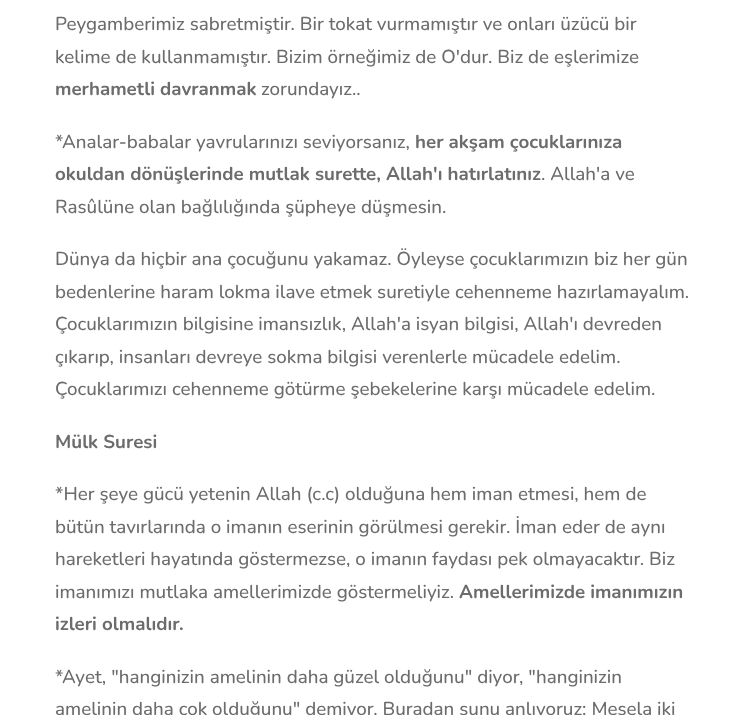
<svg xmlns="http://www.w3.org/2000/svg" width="747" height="715">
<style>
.a{font:500 18.75px Nunito;fill:#6c6c6c}
.b{font:bold 18.75px Nunito;fill:#6c6c6c}
</style>
<rect width="100%" height="100%" fill="#fff"/>
<text class="a" x="55" y="30">Peygamberimiz sabretmiştir. Bir tokat vurmamıştır ve onları üzücü bir</text>
<text class="a" x="55" y="63">kelime de kullanmamıştır. Bizim örneğimiz de O'dur. Biz de eşlerimize</text>
<text class="b" x="55" y="95">merhametli davranmak</text>
<text class="a" x="261" y="95">zorundayız..</text>
<text class="a" x="55" y="148">*Analar-babalar yavrularınızı seviyorsanız,</text>
<text class="b" x="415" y="148">her akşam çocuklarınıza</text>
<text class="b" x="55" y="180">okuldan dönüşlerinde mutlak surette, Allah'ı hatırlatınız</text>
<text class="a" x="541" y="180">. Allah'a ve</text>
<text class="a" x="55" y="213">Rasûlüne olan bağlılığında şüpheye düşmesin.</text>
<text class="a" x="55" y="265">Dünya da hiçbir ana çocuğunu yakamaz. Öyleyse çocuklarımızın biz her gün</text>
<text class="a" x="55" y="298">bedenlerine haram lokma ilave etmek suretiyle cehenneme hazırlamayalım.</text>
<text class="a" x="55" y="330">Çocuklarımızın bilgisine imansızlık, Allah'a isyan bilgisi, Allah'ı devreden</text>
<text class="a" x="55" y="363">çıkarıp, insanları devreye sokma bilgisi verenlerle mücadele edelim.</text>
<text class="a" x="55" y="395">Çocuklarımızı cehenneme götürme şebekelerine karşı mücadele edelim.</text>
<text class="b" x="55" y="448">Mülk Suresi</text>
<text class="a" x="55" y="500">*Her şeye gücü yetenin Allah (c.c) olduğuna hem iman etmesi, hem de</text>
<text class="a" x="55" y="533">bütün tavırlarında o imanın eserinin görülmesi gerekir. İman eder de aynı</text>
<text class="a" x="55" y="565">hareketleri hayatında göstermezse, o imanın faydası pek olmayacaktır. Biz</text>
<text class="a" x="55" y="598">imanımızı mutlaka amellerimizde göstermeliyiz.</text>
<text class="b" x="459" y="598">Amellerimizde imanımızın</text>
<text class="b" x="55" y="630">izleri olmalıdır.</text>
<text class="a" x="55" y="683">*Ayet, "hanginizin amelinin daha güzel olduğunu" diyor, "hanginizin</text>
<text class="a" x="55" y="715">amelinin daha çok olduğunu" demiyor. Buradan şunu anlıyoruz; Mesela iki</text>
</svg>
